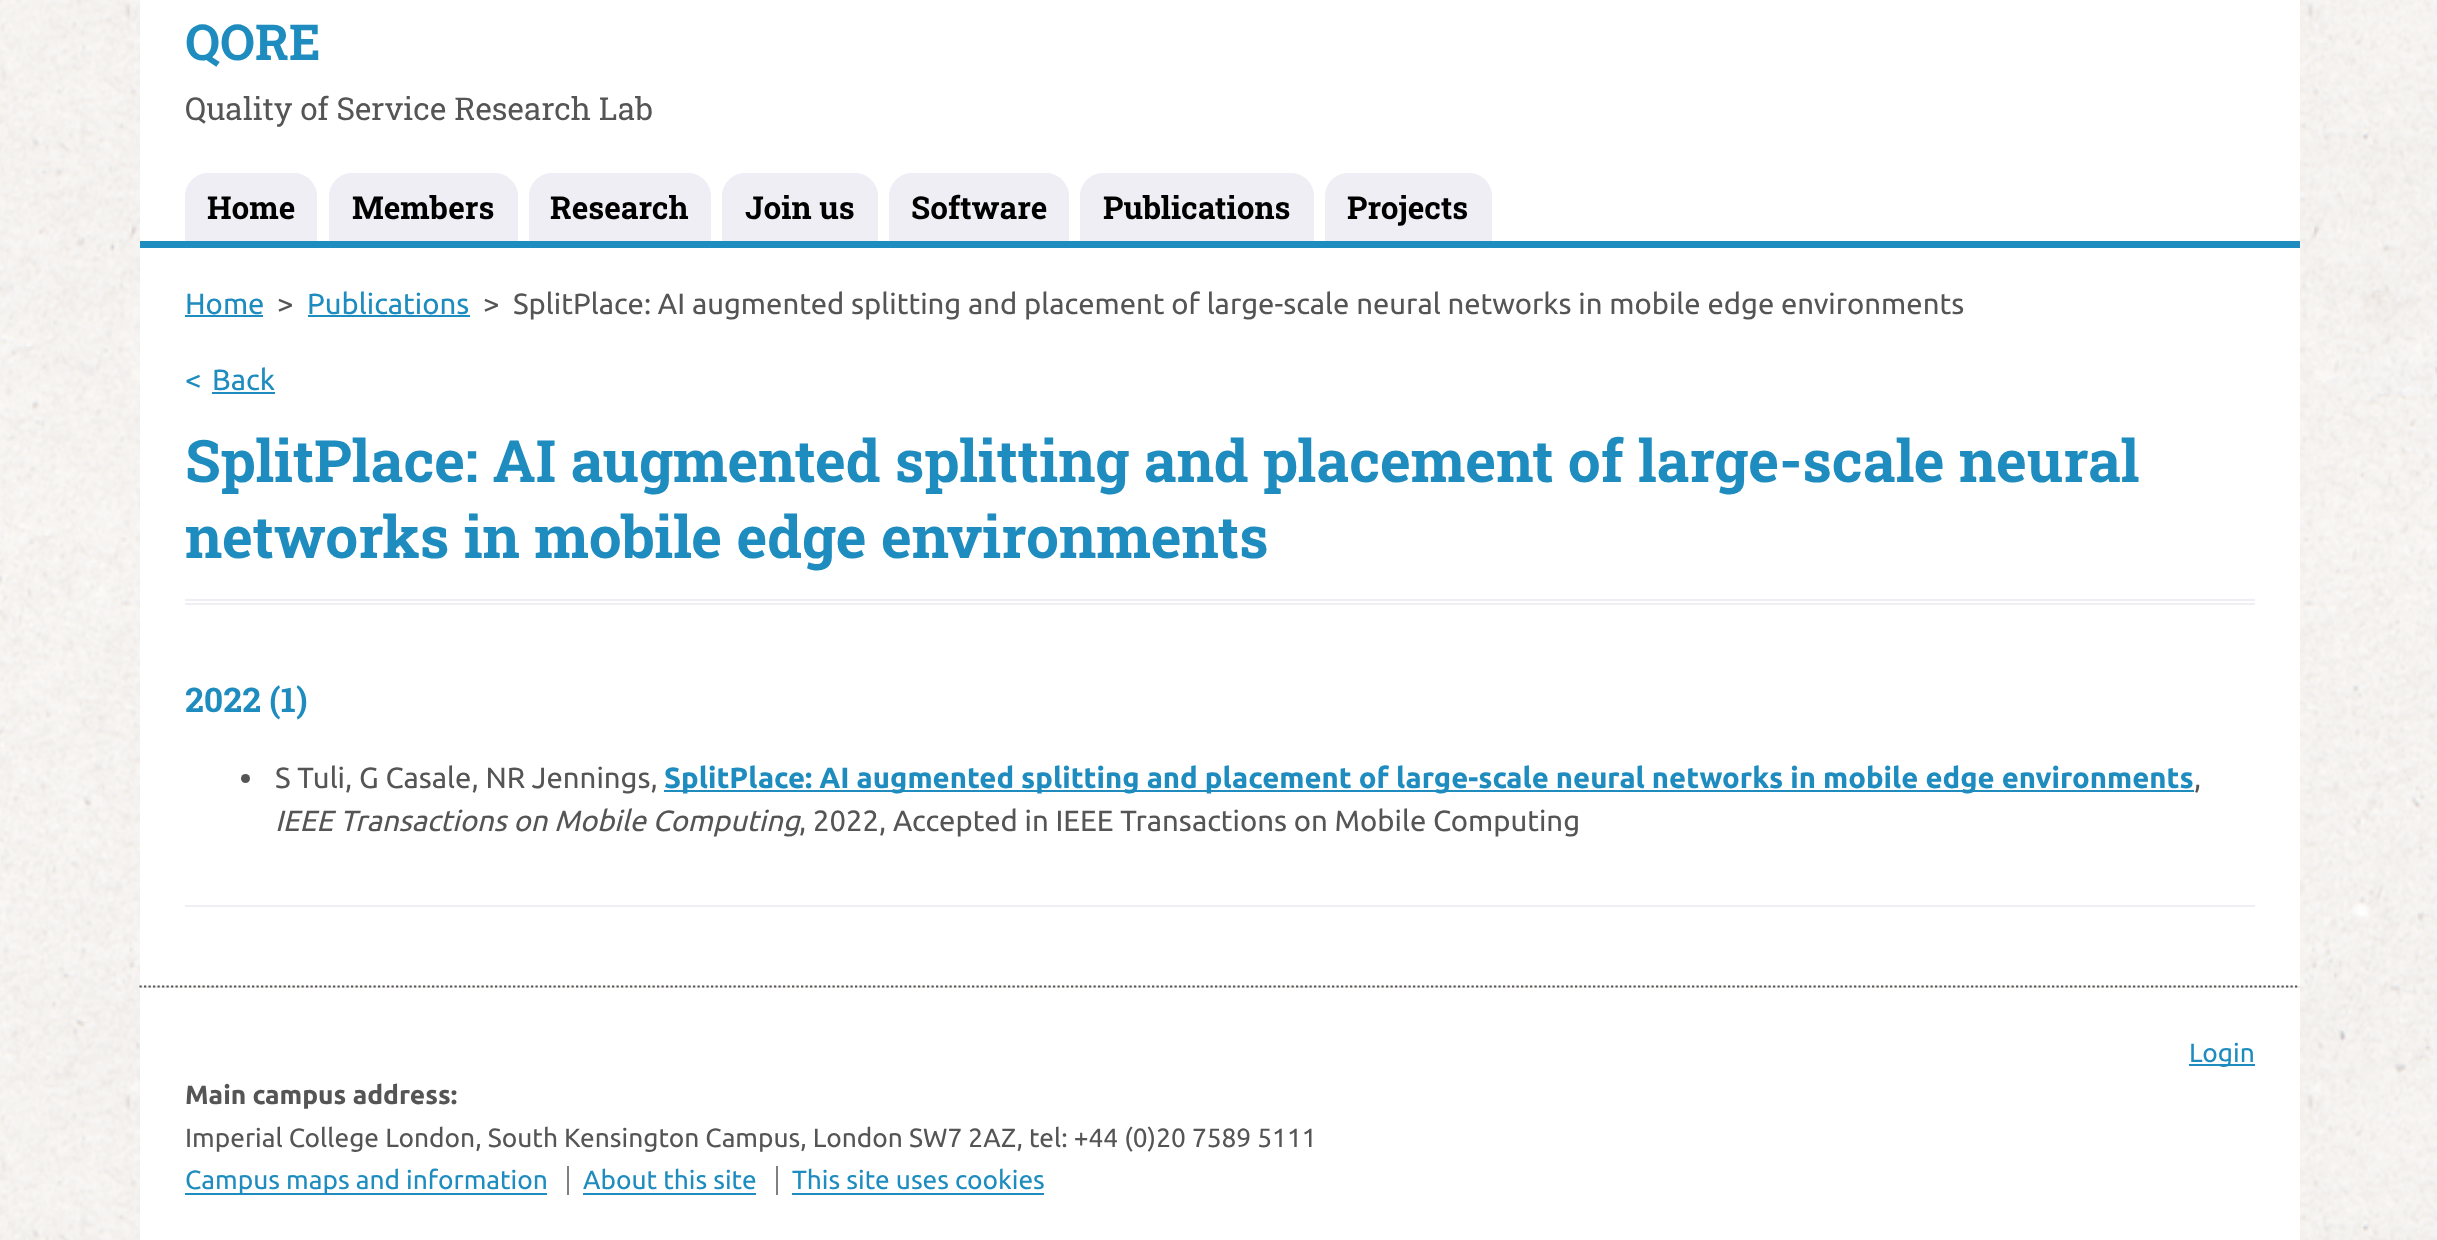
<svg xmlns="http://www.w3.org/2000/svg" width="2437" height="1240">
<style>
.a{font:bold 49.5px Roboto Slab;fill:#1e8cbe}
.b{font:31.5px Roboto Slab;fill:#555}
.c{font:bold 31.5px Roboto Slab;fill:#000}
.d{font:29.25px Ubuntu;fill:#1e8cbe}
.e{font:29.25px Ubuntu;fill:#555}
.f{font:bold 58.5px Roboto Slab;fill:#1e8cbe}
.g{font:bold 34px Roboto Slab;fill:#1e8cbe}
.h{font:bold 29.25px Ubuntu;fill:#1e8cbe}
.i{font:italic 29.25px Ubuntu;fill:#555}
.j{font:26.3px Ubuntu;fill:#1e8cbe}
.k{font:bold 26.3px Ubuntu;fill:#555}
.l{font:26.3px Ubuntu;fill:#555}
</style>
<rect width="100%" height="100%" fill="#fff"/>
<image href="1.png" x="0" y="0" width="2437" height="1240"/>
<path fill="#fff" d="M140 0h2160v241H140z"/>
<path fill="#1e8cbe" d="M140 241h2160v7H140z"/>
<path fill="#eeeef4" d="M208 173h86c12.5 0 23 10.5 23 23v45h-132v-45c0-12.5 10.5-23 23-23z"/>
<path fill="#eeeef4" d="M352 173h143c12.5 0 23 10.5 23 23v45h-189v-45c0-12.5 10.5-23 23-23z"/>
<path fill="#eeeef4" d="M552 173h136c12.5 0 23 10.5 23 23v45h-182v-45c0-12.5 10.5-23 23-23z"/>
<path fill="#eeeef4" d="M745 173h110c12.5 0 23 10.5 23 23v45h-156v-45c0-12.5 10.5-23 23-23z"/>
<path fill="#eeeef4" d="M912 173h134c12.5 0 23 10.5 23 23v45h-180v-45c0-12.5 10.5-23 23-23z"/>
<path fill="#eeeef4" d="M1103 173h188c12.5 0 23 10.5 23 23v45h-234v-45c0-12.5 10.5-23 23-23z"/>
<path fill="#eeeef4" d="M1348 173h121c12.5 0 23 10.5 23 23v45h-167v-45c0-12.5 10.5-23 23-23z"/>
<path fill="#fff" d="M140 248h2160v738H140z"/>
<path fill="#1e8cbe" d="M185 315h78v2H185z"/>
<path fill="#1e8cbe" d="M308 315h162v2H308z"/>
<path fill="#1e8cbe" d="M212 392h63v2H212z"/>
<path fill="#eeeef4" d="M185 905h2070v2H185z"/>
<path fill="#eeeef4" d="M185 599h2070v2H185z"/>
<path fill="#eeeef4" d="M185 603h2070v2H185z"/>
<circle fill="#555" cx="245.5" cy="778.5" r="4.5"/>
<path fill="#1e8cbe" d="M664 790h1530v2H664z"/>
<path fill="none" stroke="#555" stroke-width="2.2" stroke-dasharray="2.25 2.25" d="M139.5 986.5h2160"/>
<path fill="#fff" d="M140 988h2160v252H140z"/>
<path fill="#1e8cbe" d="M2189 1064h66v2H2189z"/>
<path fill="#1e8cbe" d="M185 1193h362v2H185z"/>
<path fill="#808080" d="M567 1166h2v29H567z"/>
<path fill="#1e8cbe" d="M583 1193h173v2H583z"/>
<path fill="#808080" d="M776 1166h2v29H776z"/>
<path fill="#1e8cbe" d="M792 1193h252v2H792z"/>
<text class="a" x="185" y="60">QORE</text>
<text class="b" x="185" y="120">Quality of Service Research Lab</text>
<text class="c" x="207" y="219">Home</text>
<text class="c" x="352" y="219">Members</text>
<text class="c" x="550" y="219">Research</text>
<text class="c" x="745" y="219">Join us</text>
<text class="c" x="911" y="219">Software</text>
<text class="c" x="1103" y="219">Publications</text>
<text class="c" x="1347" y="219">Projects</text>
<text class="d" x="185" y="314">Home</text>
<text class="e" x="277" y="314">&gt;</text>
<text class="d" x="307" y="314">Publications</text>
<text class="e" x="483" y="314">&gt;</text>
<text class="e" x="513" y="314">SplitPlace: AI augmented splitting and placement of large-scale neural networks in mobile edge environments</text>
<text class="d" x="185" y="390">&lt;</text>
<text class="d" x="212" y="390">Back</text>
<text class="f" x="185" y="482">SplitPlace: AI augmented splitting and placement of large-scale neural</text>
<text class="f" x="185" y="558">networks in mobile edge environments</text>
<text class="g" x="185" y="712">2022 (1)</text>
<text class="e" x="275" y="788">S Tuli, G Casale, NR Jennings,</text>
<text class="h" x="664" y="788">SplitPlace: AI augmented splitting and placement of large-scale neural networks in mobile edge environments</text>
<text class="e" x="2194" y="788">,</text>
<text class="i" x="275" y="831">IEEE Transactions on Mobile Computing</text>
<text class="e" x="799" y="831">, 2022, Accepted in IEEE Transactions on Mobile Computing</text>
<text class="j" x="2189" y="1062">Login</text>
<text class="k" x="185" y="1104">Main campus address:</text>
<text class="l" x="185" y="1147">Imperial College London, South Kensington Campus, London SW7 2AZ, tel: +44 (0)20 7589 5111</text>
<text class="j" x="185" y="1189">Campus maps and information</text>
<text class="j" x="583" y="1189">About this site</text>
<text class="j" x="792" y="1189">This site uses cookies</text>
</svg>
